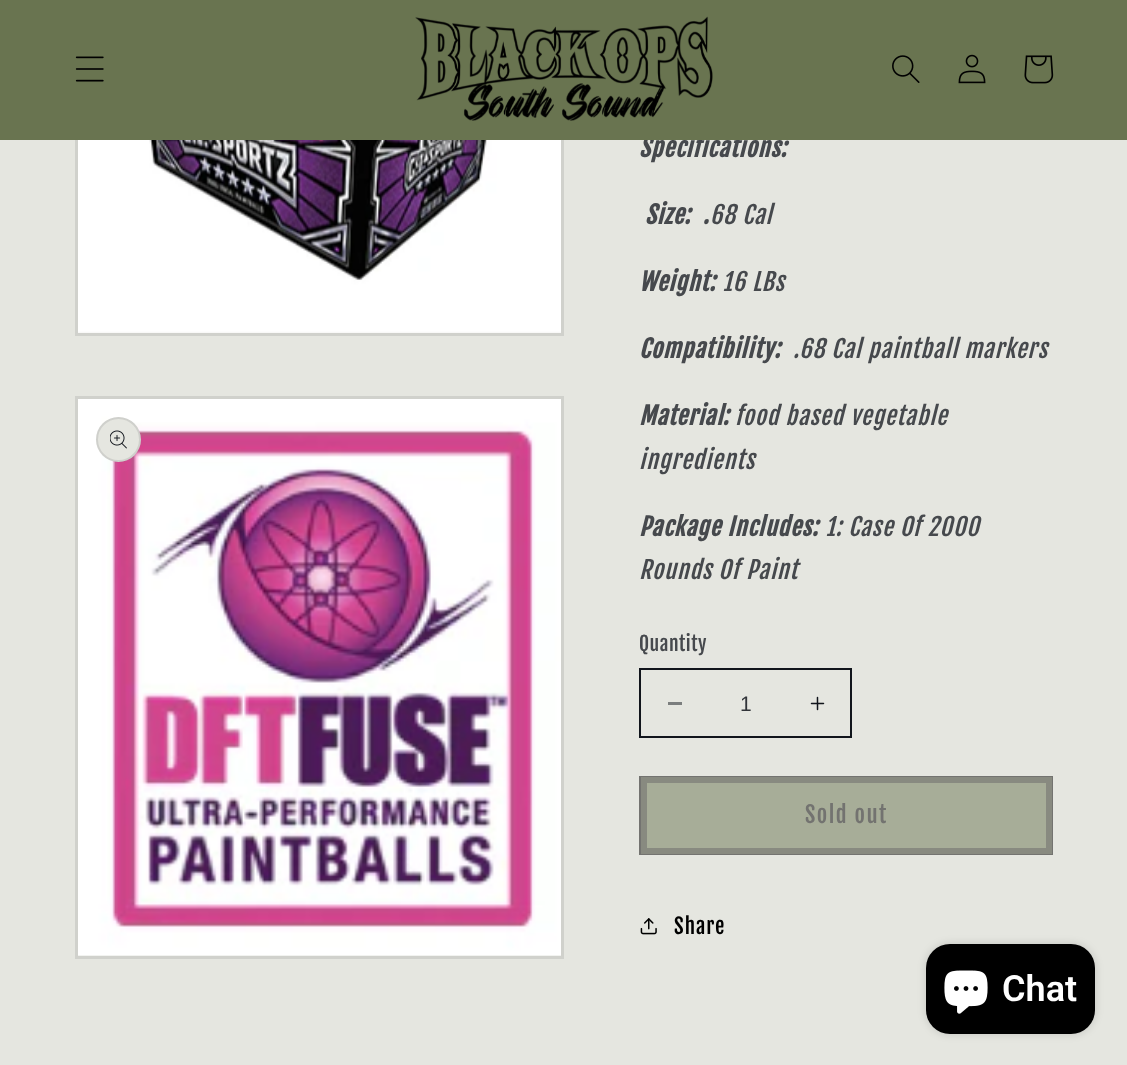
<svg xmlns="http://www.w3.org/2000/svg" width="1127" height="1065">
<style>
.a{font:italic bold 24px Fjalla One;letter-spacing:0.9px;fill:#46494d}
.b{font:italic 24px Fjalla One;letter-spacing:0.9px;fill:#46494d}
.c{font:19.5px Fjalla One;letter-spacing:0.5px;fill:#46494d}
.d{font:21px Liberation Sans;fill:#313439}
.e{font:22.5px Fjalla One;letter-spacing:1.5px;fill:#737370}
.f{font:21px Fjalla One;letter-spacing:0.9px;fill:#000}
.g{font:600 36px Roboto;fill:#fff}
</style>
<rect width="100%" height="100%" fill="#e5e6e0"/>
<path fill="none" stroke="#d0d1cc" stroke-width="3" d="M76.5 -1.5h486v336H76.5z"/>
<image href="6.png" x="78" y="140" width="483" height="193"/>
<path fill="none" stroke="#d0d1cc" stroke-width="3" d="M76.5 397.5h486v560H76.5z"/>
<image href="7.png" x="78" y="399" width="483" height="557"/>
<circle fill="#e5e6e0" cx="118.5" cy="439.5" r="22.5"/>
<circle fill="none" stroke="#11151c1a" stroke-width="2" cx="118.5" cy="439.5" r="21.5"/>
<image href="8.png" x="110" y="430" width="17" height="19"/>
<path fill="#7b7e7e" d="M668 702h14v3H668z"/>
<image href="9.png" x="810" y="696" width="15" height="15"/>
<path fill="none" stroke="#11151c" stroke-width="2" d="M640 669h211v68H640z"/>
<path fill="#a7ad98" d="M647 783h399v65H647z"/>
<path fill="none" stroke="#737370" stroke-width="2" d="M640 777h412v77H640z"/>
<path fill="none" stroke="#888a80" stroke-width="6" d="M644 780h405v71H644z"/>
<image href="10.png" x="640" y="918" width="17" height="17"/>
<rect fill="#00000026" filter="blur(4px)" x="926" y="944" width="169" height="90" rx="24"/>
<rect fill="#000" x="926" y="944" width="169" height="90" rx="24"/>
<image href="11.png" x="944" y="970" width="44" height="44"/>
<text class="a" x="639" y="157">Specifications:</text>
<path fill="#697450" d="M0 0h1127v140H0z"/>
<image href="5.png" x="1024" y="55" width="30" height="29"/>
<image href="3.png" x="892" y="55" width="28" height="28"/>
<image href="1.png" x="75" y="56" width="29" height="26"/>
<image href="4.png" x="958" y="54" width="28" height="30"/>
<image href="2.png" x="415" y="16" width="298" height="105"/>
<text class="a" xml:space="preserve" x="645" y="224">Size:  .</text>
<text class="b" x="710" y="224">68 Cal</text>
<text class="a" x="639" y="291">Weight:</text>
<text class="b" x="722" y="291">16 LBs</text>
<text class="a" x="639" y="358">Compatibility:</text>
<text class="b" x="793" y="358">.68 Cal paintball markers</text>
<text class="a" x="639" y="425">Material:</text>
<text class="b" x="735" y="425">food based vegetable</text>
<text class="b" x="639" y="469">ingredients</text>
<text class="a" x="639" y="536">Package Includes:</text>
<text class="b" x="825" y="536">1: Case Of 2000</text>
<text class="b" x="639" y="579">Rounds Of Paint</text>
<text class="c" x="639" y="651">Quantity</text>
<text class="d" x="740" y="711">1</text>
<text class="e" x="805" y="823">Sold out</text>
<text class="f" x="674" y="934">Share</text>
<text class="g" x="1002" y="1001">Chat</text>
</svg>
